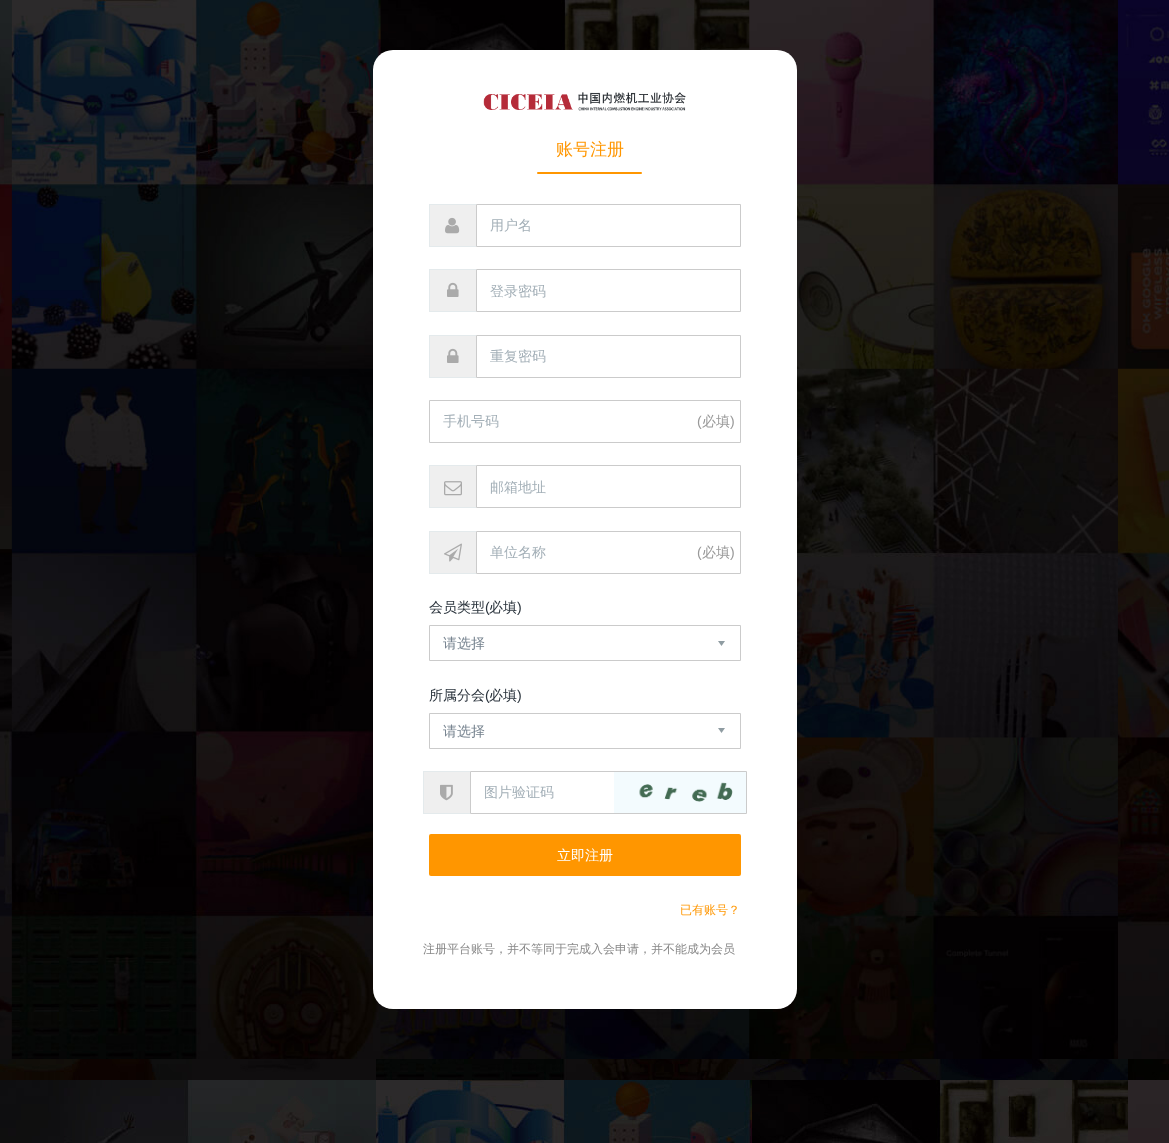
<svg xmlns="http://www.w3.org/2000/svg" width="1169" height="1143">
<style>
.a{font:500 17px WenQuanYi Zen Hei;fill:#ff9600}
.b{font:500 14px WenQuanYi Zen Hei;fill:#a3afb7}
.c{font:14px Liberation Sans;fill:#999}
.d{font:500 14px WenQuanYi Zen Hei;fill:#999}
.e{font:500 14px WenQuanYi Zen Hei;fill:#2a333c}
.f{font:14px Liberation Sans;fill:#2a333c}
.g{font:500 14px WenQuanYi Zen Hei;fill:#76838f}
.h{font:500 14px WenQuanYi Zen Hei;fill:#fff}
.i{font:500 12px WenQuanYi Zen Hei;fill:#ff9600}
.j{font:500 12px WenQuanYi Zen Hei;fill:#888}
</style>
<rect width="100%" height="100%" fill="#fff"/>
<image href="1.png" x="0" y="1059" width="1169" height="84"/>
<image href="2.png" x="0" y="0" width="1169" height="1059"/>
<rect fill="#fff" x="373" y="50" width="424" height="959" rx="20"/>
<image href="3.png" x="483" y="92" width="203" height="19"/>
<rect fill="#ff9600" x="537" y="172" width="105" height="2" rx="1"/>
<path fill="#efefef" d="M430 205h46v41H430z"/>
<path fill="#e4eaec" d="M429 204h47v1H429z"/>
<path fill="#e4eaec" d="M429 246h47v1H429z"/>
<path fill="#e4eaec" d="M429 204h1v43H429z"/>
<image href="4.png" x="445" y="217" width="15" height="17"/>
<path fill="none" stroke="#cbcbcb" d="M476.5 204.5h264v42H476.5z"/>
<path fill="#efefef" d="M430 270h46v41H430z"/>
<path fill="#e4eaec" d="M429 269h47v1H429z"/>
<path fill="#e4eaec" d="M429 311h47v1H429z"/>
<path fill="#e4eaec" d="M429 269h1v43H429z"/>
<image href="5.png" x="447" y="282" width="12" height="15"/>
<path fill="none" stroke="#cbcbcb" d="M476.5 269.5h264v42H476.5z"/>
<path fill="#efefef" d="M430 336h46v41H430z"/>
<path fill="#e4eaec" d="M429 335h47v1H429z"/>
<path fill="#e4eaec" d="M429 377h47v1H429z"/>
<path fill="#e4eaec" d="M429 335h1v43H429z"/>
<image href="5.png" x="447" y="348" width="12" height="15"/>
<path fill="none" stroke="#cbcbcb" d="M476.5 335.5h264v42H476.5z"/>
<path fill="none" stroke="#cbcbcb" d="M429.5 400.5h311v42H429.5z"/>
<path fill="#efefef" d="M430 466h46v41H430z"/>
<path fill="#e4eaec" d="M429 465h47v1H429z"/>
<path fill="#e4eaec" d="M429 507h47v1H429z"/>
<path fill="#e4eaec" d="M429 465h1v43H429z"/>
<image href="6.png" x="444" y="481" width="18" height="15"/>
<path fill="none" stroke="#cbcbcb" d="M476.5 465.5h264v42H476.5z"/>
<path fill="#efefef" d="M430 532h46v41H430z"/>
<path fill="#e4eaec" d="M429 531h47v1H429z"/>
<path fill="#e4eaec" d="M429 573h47v1H429z"/>
<path fill="#e4eaec" d="M429 531h1v43H429z"/>
<image href="7.png" x="444" y="543" width="18" height="19"/>
<path fill="none" stroke="#cbcbcb" d="M476.5 531.5h264v42H476.5z"/>
<image href="8.png" x="718" y="641" width="7" height="5"/>
<path fill="none" stroke="#cbcbcb" d="M429.5 625.5h311v35H429.5z"/>
<image href="8.png" x="718" y="728" width="7" height="5"/>
<path fill="none" stroke="#cbcbcb" d="M429.5 713.5h311v35H429.5z"/>
<path fill="#efefef" d="M424 772h46v41H424z"/>
<path fill="#e4eaec" d="M423 771h47v1H423z"/>
<path fill="#e4eaec" d="M423 813h47v1H423z"/>
<path fill="#e4eaec" d="M423 771h1v43H423z"/>
<image href="9.png" x="440" y="784" width="13" height="17"/>
<path fill="none" stroke="#cbcbcb" d="M470.5 771.5h276v42H470.5z"/>
<image href="10.png" x="614" y="772" width="132" height="41"/>
<rect fill="#ff9600" x="429" y="834" width="312" height="42" rx="2"/>
<text class="a" x="556" y="155">账号注册</text>
<text class="b" x="490" y="230">用户名</text>
<text class="b" x="490" y="296">登录密码</text>
<text class="b" x="490" y="361">重复密码</text>
<text class="b" x="443" y="426">手机号码</text>
<text class="c" x="697" y="426">(</text>
<text class="d" x="702" y="426">必填</text>
<text class="c" x="730" y="426">)</text>
<text class="b" x="490" y="492">邮箱地址</text>
<text class="b" x="490" y="557">单位名称</text>
<text class="c" x="697" y="557">(</text>
<text class="d" x="702" y="557">必填</text>
<text class="c" x="730" y="557">)</text>
<text class="e" x="429" y="612">会员类型</text>
<text class="f" x="485" y="612">(</text>
<text class="e" x="489" y="612">必填</text>
<text class="f" x="517" y="612">)</text>
<text class="g" x="443" y="648">请选择</text>
<text class="e" x="429" y="700">所属分会</text>
<text class="f" x="485" y="700">(</text>
<text class="e" x="489" y="700">必填</text>
<text class="f" x="517" y="700">)</text>
<text class="g" x="443" y="736">请选择</text>
<text class="b" x="484" y="797">图片验证码</text>
<text class="h" x="557" y="860">立即注册</text>
<text class="i" x="680" y="914">已有账号？</text>
<text class="j" x="423" y="953">注册平台账号，并不等同于完成入会申请，并不能成为会员</text>
</svg>
